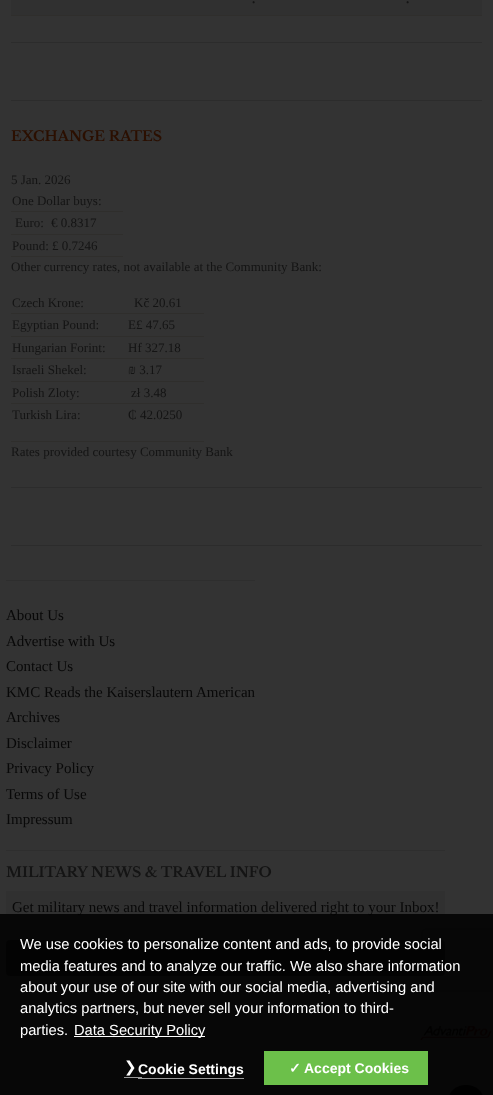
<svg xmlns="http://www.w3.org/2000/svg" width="493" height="1095">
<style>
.a{font:bold 13px Liberation Serif;fill:#141414}
.b{font:bold 14px Libre Baskerville;fill:#2b0f00}
.c{font:13px Liberation Serif;fill:#141414}
.d{font:15px Liberation Serif;fill:#080808}
.e{font:bold 14px Libre Baskerville;fill:#141414}
.f{font:14.7px Liberation Sans;fill:#fff}
.g{font:15px DejaVu Sans;fill:#fff}
.h{font:bold 14px Liberation Sans;fill:#fff}
.i{font:bold 14px DejaVu Sans;fill:#fff}
</style>
<defs>
<clipPath id="clip1"><path d="M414 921h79v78h-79zm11 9h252c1 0 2 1 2 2v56c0 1-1 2-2 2h-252c-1 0-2-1-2-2v-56c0-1 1-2 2-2z" clip-rule="evenodd"/></clipPath>
</defs>
<rect width="100%" height="100%" fill="#333"/>
<path fill="#2c2c2c" d="M11 42h471v1H11z"/>
<path fill="#303030" d="M11 0h471v15H11z"/>
<path fill="#2f2e2c" d="M11 15h471v1H11z"/>
<path fill="#2c2c2c" d="M11 100h471v1H11z"/>
<path fill="#2c2c2c" d="M11 487h471v1H11z"/>
<path fill="#2f2e2c" d="M11 211h112v1H11z"/>
<path fill="#2f2e2c" d="M11 234h112v1H11z"/>
<path fill="#2f2e2c" d="M11 256h112v1H11z"/>
<path fill="#2f2e2c" d="M11 313h193v1H11z"/>
<path fill="#2f2e2c" d="M11 336h193v1H11z"/>
<path fill="#2f2e2c" d="M11 358h193v1H11z"/>
<path fill="#2f2e2c" d="M11 381h193v1H11z"/>
<path fill="#2f2e2c" d="M11 403h193v1H11z"/>
<path fill="#2f2e2c" d="M11 441h193v1H11z"/>
<path fill="#2c2c2c" d="M11 545h471v1H11z"/>
<path fill="#2f2f2f" d="M0 997h493v3H0z"/>
<path fill="#2e2e2e" d="M6 580h249v1H6z"/>
<path fill="#2e2e2e" d="M6 850h439v1H6z"/>
<path fill="#303030" d="M6 891h439v34H6z"/>
<rect fill="#1a1a1a" x="6" y="940" width="439" height="36" rx="4"/>
<image href="1.png" x="419" y="1025" width="74" height="15"/>
<g clip-path="url(#clip1)">
<rect fill="#1a1a1a" filter="blur(2.5px)" x="423" y="930" width="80" height="60" rx="2"/>
</g>
<text class="a" x="252" y="3">.</text>
<text class="a" x="406" y="3">.</text>
<text class="b" x="11" y="141">EXCHANGE RATES</text>
<text class="c" x="11" y="184">5 Jan. 2026</text>
<text class="c" x="12" y="205">One Dollar buys:</text>
<text class="c" x="15" y="227">Euro:</text>
<text class="c" x="51" y="227">€ 0.8317</text>
<text class="c" x="12" y="250">Pound: £ 0.7246</text>
<text class="c" x="11" y="271">Other currency rates, not available at the Community Bank:</text>
<text class="c" x="12" y="307">Czech Krone:</text>
<text class="c" x="134" y="307">Kč 20.61</text>
<text class="c" x="12" y="329">Egyptian Pound:</text>
<text class="c" x="128" y="329">E£ 47.65</text>
<text class="c" x="12" y="352">Hungarian Forint:</text>
<text class="c" x="128" y="352">Hf 327.18</text>
<text class="c" x="12" y="374">Israeli Shekel:</text>
<text class="c" x="128" y="374">₪ 3.17</text>
<text class="c" x="12" y="397">Polish Zloty:</text>
<text class="c" x="131" y="397">zł 3.48</text>
<text class="c" x="12" y="419">Turkish Lira:</text>
<text class="c" x="128" y="419">₵ 42.0250</text>
<text class="c" x="11" y="456">Rates provided courtesy Community Bank</text>
<text class="d" x="6" y="620">About Us</text>
<text class="d" x="6" y="646">Advertise with Us</text>
<text class="d" x="6" y="671">Contact Us</text>
<text class="d" x="6" y="697">KMC Reads the Kaiserslautern American</text>
<text class="d" x="6" y="722">Archives</text>
<text class="d" x="6" y="748">Disclaimer</text>
<text class="d" x="6" y="773">Privacy Policy</text>
<text class="d" x="6" y="799">Terms of Use</text>
<text class="d" x="6" y="824">Impressum</text>
<text class="e" x="6" y="877">MILITARY NEWS &amp; TRAVEL INFO</text>
<text class="d" x="12" y="912">Get military news and travel information delivered right to your Inbox!</text>
<path fill="#000000d9" d="M0 914h493v181H0z"/>
<rect fill="#000" x="449" y="1085" width="34" height="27" rx="17"/>
<text class="f" x="20" y="949">We use cookies to personalize content and ads, to provide social</text>
<text class="f" x="20" y="971">media features and to analyze our traffic. We also share information</text>
<text class="f" x="20" y="992">about your use of our site with our social media, advertising and</text>
<text class="f" x="20" y="1013">analytics partners, but never sell your information to third-</text>
<text class="f" x="20" y="1035">parties.</text>
<path fill="#fff" d="M74 1036h131v1H74z"/>
<text class="f" x="74" y="1035">Data Security Policy</text>
<path fill="#999" d="M124 1077h18v1H124z"/>
<path fill="#999" d="M138 1078h106v1H138z"/>
<text class="g" x="124" y="1072">❯</text>
<text class="h" x="138" y="1074">Cookie Settings</text>
<path fill="#6cc04a" d="M264 1051h164v34H264z"/>
<text class="i" x="289" y="1073">✓</text>
<text class="h" x="304" y="1073">Accept Cookies</text>
</svg>
